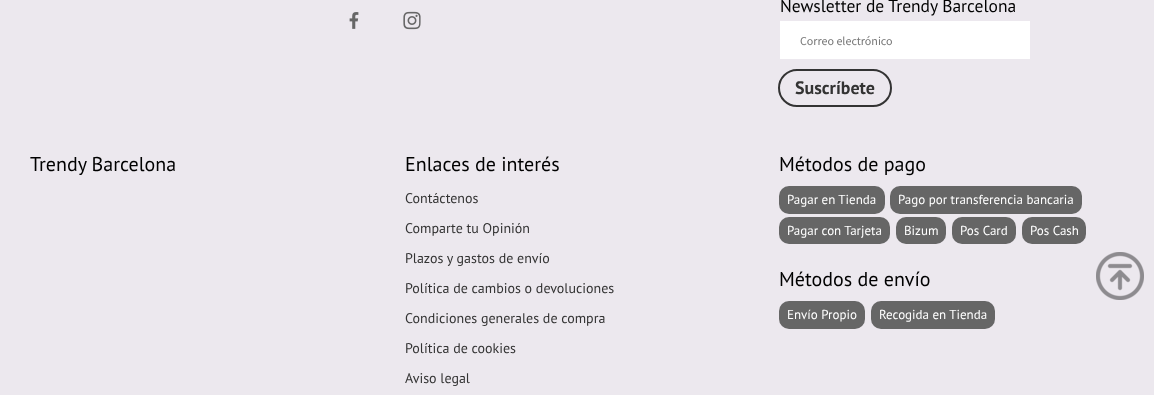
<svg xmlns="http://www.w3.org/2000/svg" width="1154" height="395">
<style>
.a{font:17.5px PT Sans;fill:#000}
.b{font:12px Source Sans Pro;fill:#757575}
.c{font:bold 18px PT Sans;fill:#333}
.d{font:20px PT Sans;fill:#000}
.e{font:14px PT Sans;fill:#333}
.f{font:13px PT Sans;fill:#fff}
</style>
<rect width="100%" height="100%" fill="#ece8ee"/>
<image href="1.png" x="349" y="12" width="10" height="17"/>
<image href="2.png" x="403" y="11" width="18" height="19"/>
<path fill="#fff" d="M780 21h250v38H780z"/>
<rect fill="none" stroke="#333" stroke-width="2" x="779" y="70" width="112" height="36" rx="18"/>
<rect fill="#666" x="779" y="186" width="106" height="28" rx="10"/>
<rect fill="#666" x="890" y="186" width="192" height="28" rx="10"/>
<rect fill="#666" x="779" y="217" width="111" height="27" rx="10"/>
<rect fill="#666" x="896" y="217" width="50" height="27" rx="10"/>
<rect fill="#666" x="952" y="217" width="64" height="27" rx="10"/>
<rect fill="#666" x="1022" y="217" width="64" height="27" rx="10"/>
<rect fill="#666" x="779" y="301" width="86" height="28" rx="10"/>
<rect fill="#666" x="871" y="301" width="124" height="28" rx="10"/>
<image href="3.png" x="1096" y="252" width="48" height="48"/>
<text class="a" x="780" y="12">Newsletter de Trendy Barcelona</text>
<text class="b" x="800" y="45">Correo electrónico</text>
<text class="c" x="795" y="94">Suscríbete</text>
<text class="d" x="30" y="171">Trendy Barcelona</text>
<text class="d" x="405" y="171">Enlaces de interés</text>
<text class="e" x="405" y="203">Contáctenos</text>
<text class="e" x="405" y="233">Comparte tu Opinión</text>
<text class="e" x="405" y="263">Plazos y gastos de envío</text>
<text class="e" x="405" y="293">Política de cambios o devoluciones</text>
<text class="e" x="405" y="323">Condiciones generales de compra</text>
<text class="e" x="405" y="353">Política de cookies</text>
<text class="e" x="405" y="383">Aviso legal</text>
<text class="d" x="779" y="171">Métodos de pago</text>
<text class="f" x="787" y="204">Pagar en Tienda</text>
<text class="f" x="898" y="204">Pago por transferencia bancaria</text>
<text class="f" x="787" y="235">Pagar con Tarjeta</text>
<text class="f" x="904" y="235">Bizum</text>
<text class="f" x="960" y="235">Pos Card</text>
<text class="f" x="1030" y="235">Pos Cash</text>
<text class="d" x="779" y="286">Métodos de envío</text>
<text class="f" x="787" y="319">Envío Propio</text>
<text class="f" x="879" y="319">Recogida en Tienda</text>
</svg>
